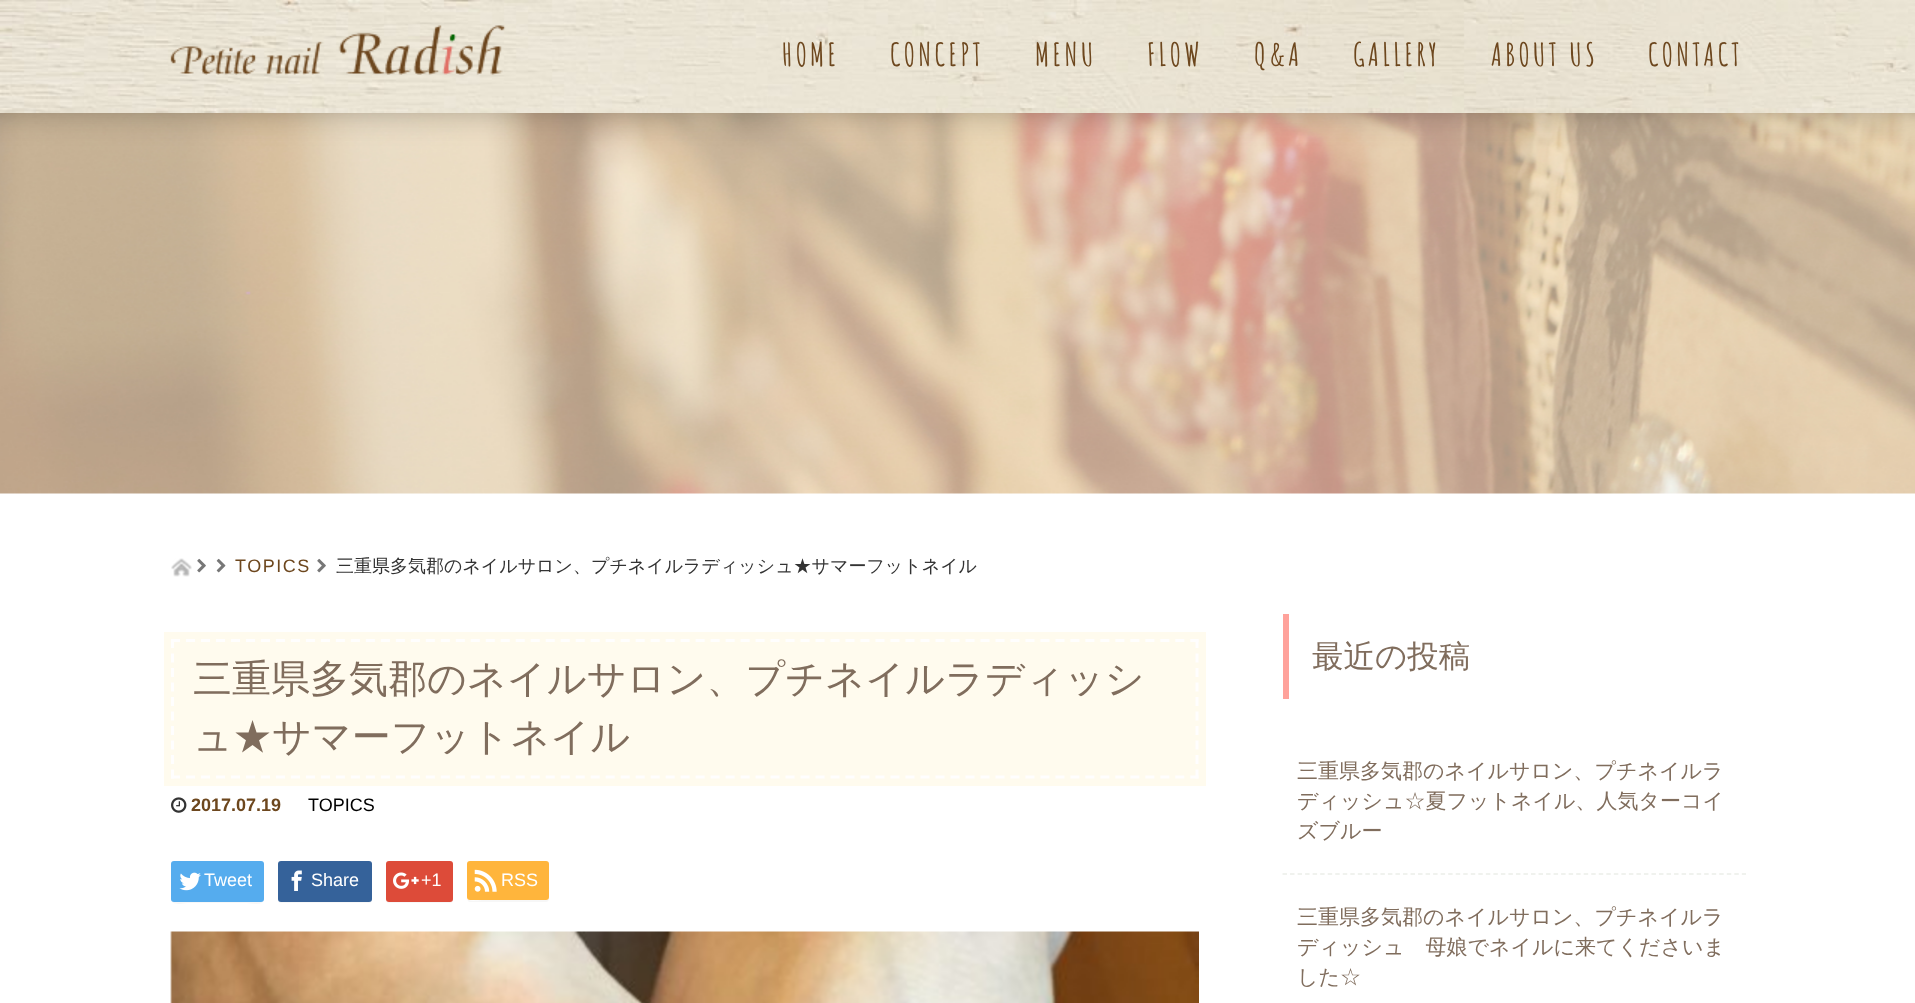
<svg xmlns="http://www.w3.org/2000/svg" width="1915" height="1003">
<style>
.a{font:bold 31.5px Amatic SC;letter-spacing:3.25px;fill:#6d471e}
.b{font:18px Liberation Sans;letter-spacing:1.5px;fill:#6d471e}
.c{font:500 18px WenQuanYi Zen Hei;fill:#333}
.d{font:500 39px WenQuanYi Zen Hei;fill:#806d5d}
.e{font:bold 18px Liberation Sans;fill:#6d471e}
.f{font:18px Liberation Sans;fill:#000}
.g{font:18px Liberation Sans;fill:#fff}
.h{font:500 31.5px WenQuanYi Zen Hei;fill:#806d5d}
.i{font:500 21px WenQuanYi Zen Hei;fill:#806d5d}
</style>
<rect width="100%" height="100%" fill="#fff"/>
<image href="3.png" x="0" y="113" width="1915" height="381"/>
<path fill="#00000069" filter="blur(18px)" d="M-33 -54h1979v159H-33z"/>
<image href="1.png" x="0" y="0" width="1915" height="113"/>
<image href="2.png" x="170" y="25" width="336" height="50"/>
<image href="4.png" x="171" y="558" width="21" height="19"/>
<image href="5.png" x="197" y="558" width="9" height="15"/>
<image href="6.png" x="216" y="558" width="10" height="15"/>
<image href="5.png" x="317" y="558" width="9" height="15"/>
<path fill="none" stroke="#fffbee" stroke-width="8" d="M168 636h1034v146H168z"/>
<path fill="#fffbee" d="M172 640h1026v138H172z"/>
<path fill="none" stroke="#fffefe" stroke-width="3" stroke-dasharray="9 5.99" d="M171 640.5h1027.5"/>
<path fill="none" stroke="#fffefe" stroke-width="3" stroke-dasharray="9 5.5" d="M1197 639v139.5"/>
<path fill="none" stroke="#fffefe" stroke-width="3" stroke-dasharray="9 5.99" d="M171 777h1027.5"/>
<path fill="none" stroke="#fffefe" stroke-width="3" stroke-dasharray="9 5.5" d="M172.5 639v139.5"/>
<image href="7.png" x="171" y="797" width="16" height="16"/>
<path fill="#f7f7f7" d="M171 898c0 9 12 5 17 5h58c6 0 18 4 18-5c0 2-1 4-3 4h-87c-2 0-3-2-3-4z"/>
<rect fill="#55acee" x="171" y="861" width="93" height="41" rx="3"/>
<image href="8.png" x="179" y="872" width="22" height="19"/>
<path fill="#f7f7f7" d="M278 900c0 2 1 3 3 3h88c2 0 3-1 3-3v-2l-1 2l-1 1h-90z"/>
<rect fill="#35629a" x="278" y="861" width="94" height="41" rx="3"/>
<image href="9.png" x="291" y="870" width="11" height="21"/>
<path fill="#f7f7f7" d="M386 900c0 2 1 3 3 3h61c2 0 3-1 3-3v-2c0 2-1 4-3 4h-62c-1 0-1-1-2-2z"/>
<rect fill="#dd4b39" x="386" y="861" width="67" height="41" rx="3"/>
<image href="10.png" x="393" y="872" width="26" height="17"/>
<path fill="#f7f7f7" d="M467 899l1 2l1 1h77c3 0 3-3 3-5l-1 2l-1 1h-65c0 0-13 2-15-1z"/>
<rect fill="#ffb53c" x="467" y="861" width="82" height="39" rx="3"/>
<image href="11.png" x="474" y="869" width="23" height="23"/>
<image href="12.png" x="170" y="931" width="1029" height="72"/>
<path fill="#ffa29b" d="M1283 614h6v85H1283z"/>
<path fill="none" stroke="#eceee9" stroke-width="1.5" stroke-dasharray="4.5 3.03" d="M1282.5 874h463.5"/>
<text class="a" x="782" y="66">HOME</text>
<text class="a" x="890" y="66">CONCEPT</text>
<text class="a" x="1035" y="66">MENU</text>
<text class="a" x="1147" y="66">FLOW</text>
<text class="a" x="1254" y="66">Q&amp;A</text>
<text class="a" x="1353" y="66">GALLERY</text>
<text class="a" x="1491" y="66">ABOUT US</text>
<text class="a" x="1648" y="66">CONTACT</text>
<text class="b" x="235" y="572">TOPICS</text>
<text class="c" x="336" y="572">三重県多気郡のネイルサロン、プチネイルラディッシュ★サマーフットネイル</text>
<text class="d" x="193" y="692">三重県多気郡のネイルサロン、プチネイルラディッシ</text>
<text class="d" x="193" y="750">ュ★サマーフットネイル</text>
<text class="e" x="191" y="811">2017.07.19</text>
<text class="f" x="308" y="811">TOPICS</text>
<text class="g" x="204" y="886">Tweet</text>
<text class="g" x="311" y="886">Share</text>
<text class="g" x="421" y="886">+1</text>
<text class="g" x="501" y="886">RSS</text>
<text class="h" x="1312" y="667">最近の投稿</text>
<text class="i" x="1297" y="778">三重県多気郡のネイルサロン、プチネイルラ</text>
<text class="i" x="1297" y="808">ディッシュ☆夏フットネイル、人気ターコイ</text>
<text class="i" x="1297" y="838">ズブルー</text>
<text class="i" x="1297" y="924">三重県多気郡のネイルサロン、プチネイルラ</text>
<text class="i" x="1297" y="954">ディッシュ　母娘でネイルに来てくださいま</text>
<text class="i" x="1297" y="984">した☆</text>
</svg>
